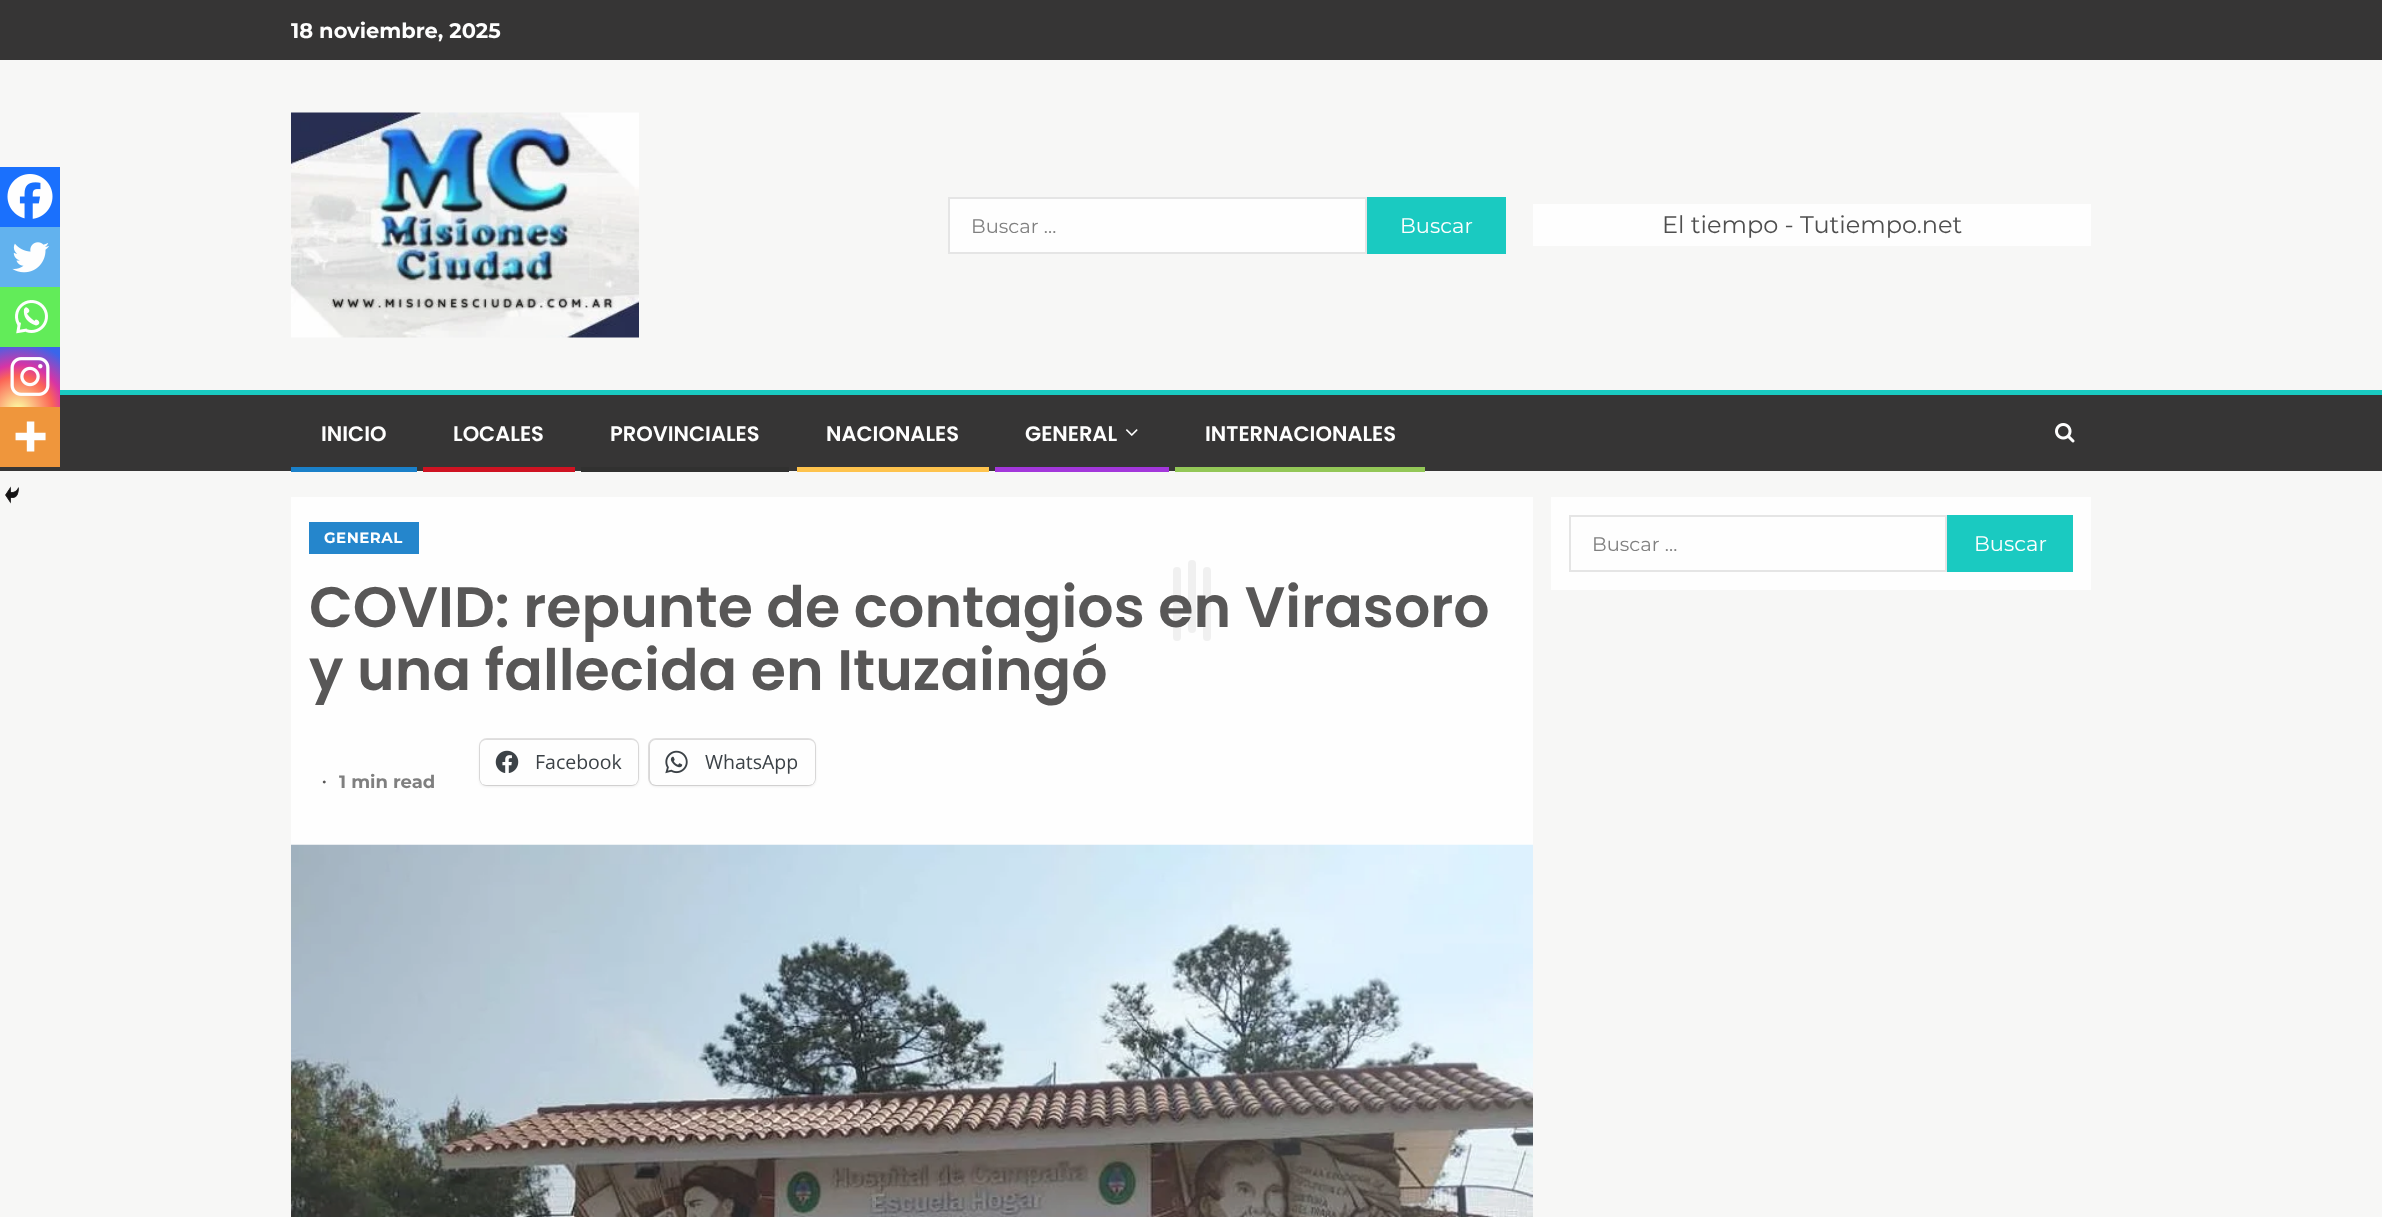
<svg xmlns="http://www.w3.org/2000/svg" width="2382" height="1217">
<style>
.a{font:bold 21px Montserrat;fill:#fefefe}
.b{font:19.5px Montserrat;fill:#7f7f7f}
.c{font:21px Montserrat;fill:#fefefe}
.d{font:24px Montserrat;fill:#4e4e4e}
.e{font:600 21px Poppins;fill:#fefefe}
.f{font:bold 15px Montserrat;letter-spacing:0.5px;fill:#fefefe}
.g{font:600 57px Poppins;fill:#585757}
.h{font:19.5px Open Sans;fill:#3c4247}
.i{font:bold 18px Liberation Serif;fill:#585757}
.j{font:bold 18px Montserrat;fill:#7f7f7f}
</style>
<defs>
<radialGradient id="g1" gradientUnits="userSpaceOnUse" cx="18" cy="411" r="77"><stop offset="0" stop-color="#fcf49e"/><stop offset="0.05" stop-color="#fcf49e"/><stop offset="0.45" stop-color="#fc6556"/><stop offset="0.6" stop-color="#d834a5"/><stop offset="0.9" stop-color="#3866eb"/></radialGradient>
</defs>
<rect width="100%" height="100%" fill="#f7f7f6"/>
<path fill="#363535" d="M0 0h2382v60H0z"/>
<image href="1.png" x="291" y="112" width="348" height="226"/>
<path fill="#fefefe" stroke="#e5e5e5" stroke-width="2" d="M949 198h417v55H949z"/>
<path fill="#1acac1" d="M1367 197h139v57H1367z"/>
<path fill="#fefefe" d="M1533 204h558v42H1533z"/>
<path fill="#363535" d="M0 395h2382v76H0z"/>
<path fill="#1acac1" d="M60 390h2322v5H60z"/>
<path fill="#1a80c9" d="M291 467h126v5H291z"/>
<path fill="#cf1322" d="M423 467h152v5H423z"/>
<path fill="#313130" d="M581 467h208v5H581z"/>
<path fill="#fec34d" d="M797 467h192v5H797z"/>
<image href="2.png" x="1125" y="429" width="13" height="7"/>
<path fill="#a337db" d="M995 467h174v5H995z"/>
<path fill="#93c757" d="M1175 467h250v5H1175z"/>
<image href="3.png" x="2055" y="423" width="20" height="20"/>
<path fill="#1a70fd" d="M0 167h60v60H0z"/>
<image href="4.png" x="7" y="174" width="46" height="45"/>
<path fill="#62b2ee" d="M0 227h60v60H0z"/>
<image href="5.png" x="12" y="242" width="37" height="31"/>
<path fill="#62ec59" d="M0 287h60v60H0z"/>
<image href="6.png" x="15" y="300" width="33" height="34"/>
<path fill="url(#g1)" d="M0 347h60v60H0z"/>
<image href="7.png" x="10" y="357" width="40" height="39"/>
<path fill="#ef963c" d="M0 407h60v60H0z"/>
<image href="8.png" x="15" y="421" width="31" height="31"/>
<image href="9.png" x="5" y="486" width="14" height="18"/>
<path fill="#fefefe" d="M291 497h1242v348H291z"/>
<path fill="#2586cc" d="M309 522h110v32H309z"/>
<rect fill="none" stroke="#e2e1e1" stroke-width="2" x="480" y="739" width="158" height="46" rx="7"/>
<rect fill="#1413131f" filter="blur(1.5px)" x="480" y="741" width="158" height="45" rx="6"/>
<rect fill="#fefefe" x="480" y="740" width="158" height="45" rx="6"/>
<image href="10.png" x="495" y="750" width="24" height="23"/>
<rect fill="none" stroke="#e2e1e1" stroke-width="2" x="649" y="739" width="166" height="46" rx="7"/>
<rect fill="#1413131f" filter="blur(1.5px)" x="650" y="741" width="165" height="45" rx="6"/>
<rect fill="#fefefe" x="650" y="740" width="165" height="45" rx="6"/>
<image href="11.png" x="665" y="750" width="23" height="24"/>
<image href="12.png" x="291" y="844" width="1242" height="373"/>
<path fill="#fefefe" d="M1551 497h540v93H1551z"/>
<path fill="none" stroke="#e5e5e5" stroke-width="2" d="M1570 516h376v55H1570z"/>
<path fill="#1acac1" d="M1947 515h126v57H1947z"/>
<rect fill="#4a4a4a14" x="1188" y="560" width="8" height="73" rx="4"/>
<rect fill="#4a4a4a14" x="1173" y="567" width="8" height="74" rx="4"/>
<rect fill="#4a4a4a14" x="1203" y="567" width="8" height="74" rx="4"/>
<text class="a" x="291" y="38">18 noviembre, 2025</text>
<text class="b" x="971" y="233">Buscar …</text>
<text class="c" x="1400" y="233">Buscar</text>
<text class="d" x="1662" y="233">El tiempo - Tutiempo.net</text>
<text class="e" x="321" y="441">INICIO</text>
<text class="e" x="453" y="441">LOCALES</text>
<text class="e" x="610" y="441">PROVINCIALES</text>
<text class="e" x="826" y="441">NACIONALES</text>
<text class="e" x="1025" y="441">GENERAL</text>
<text class="e" x="1205" y="441">INTERNACIONALES</text>
<text class="f" x="324" y="543">GENERAL</text>
<text class="g" x="309" y="627">COVID: repunte de contagios en Virasoro</text>
<text class="g" x="309" y="690">y una fallecida en Ituzaingó</text>
<text class="h" x="535" y="769">Facebook</text>
<text class="h" x="705" y="769">WhatsApp</text>
<text class="i" x="322" y="788">∙</text>
<text class="j" x="339" y="788">1 min read</text>
<text class="b" x="1592" y="551">Buscar …</text>
<text class="c" x="1974" y="551">Buscar</text>
</svg>
